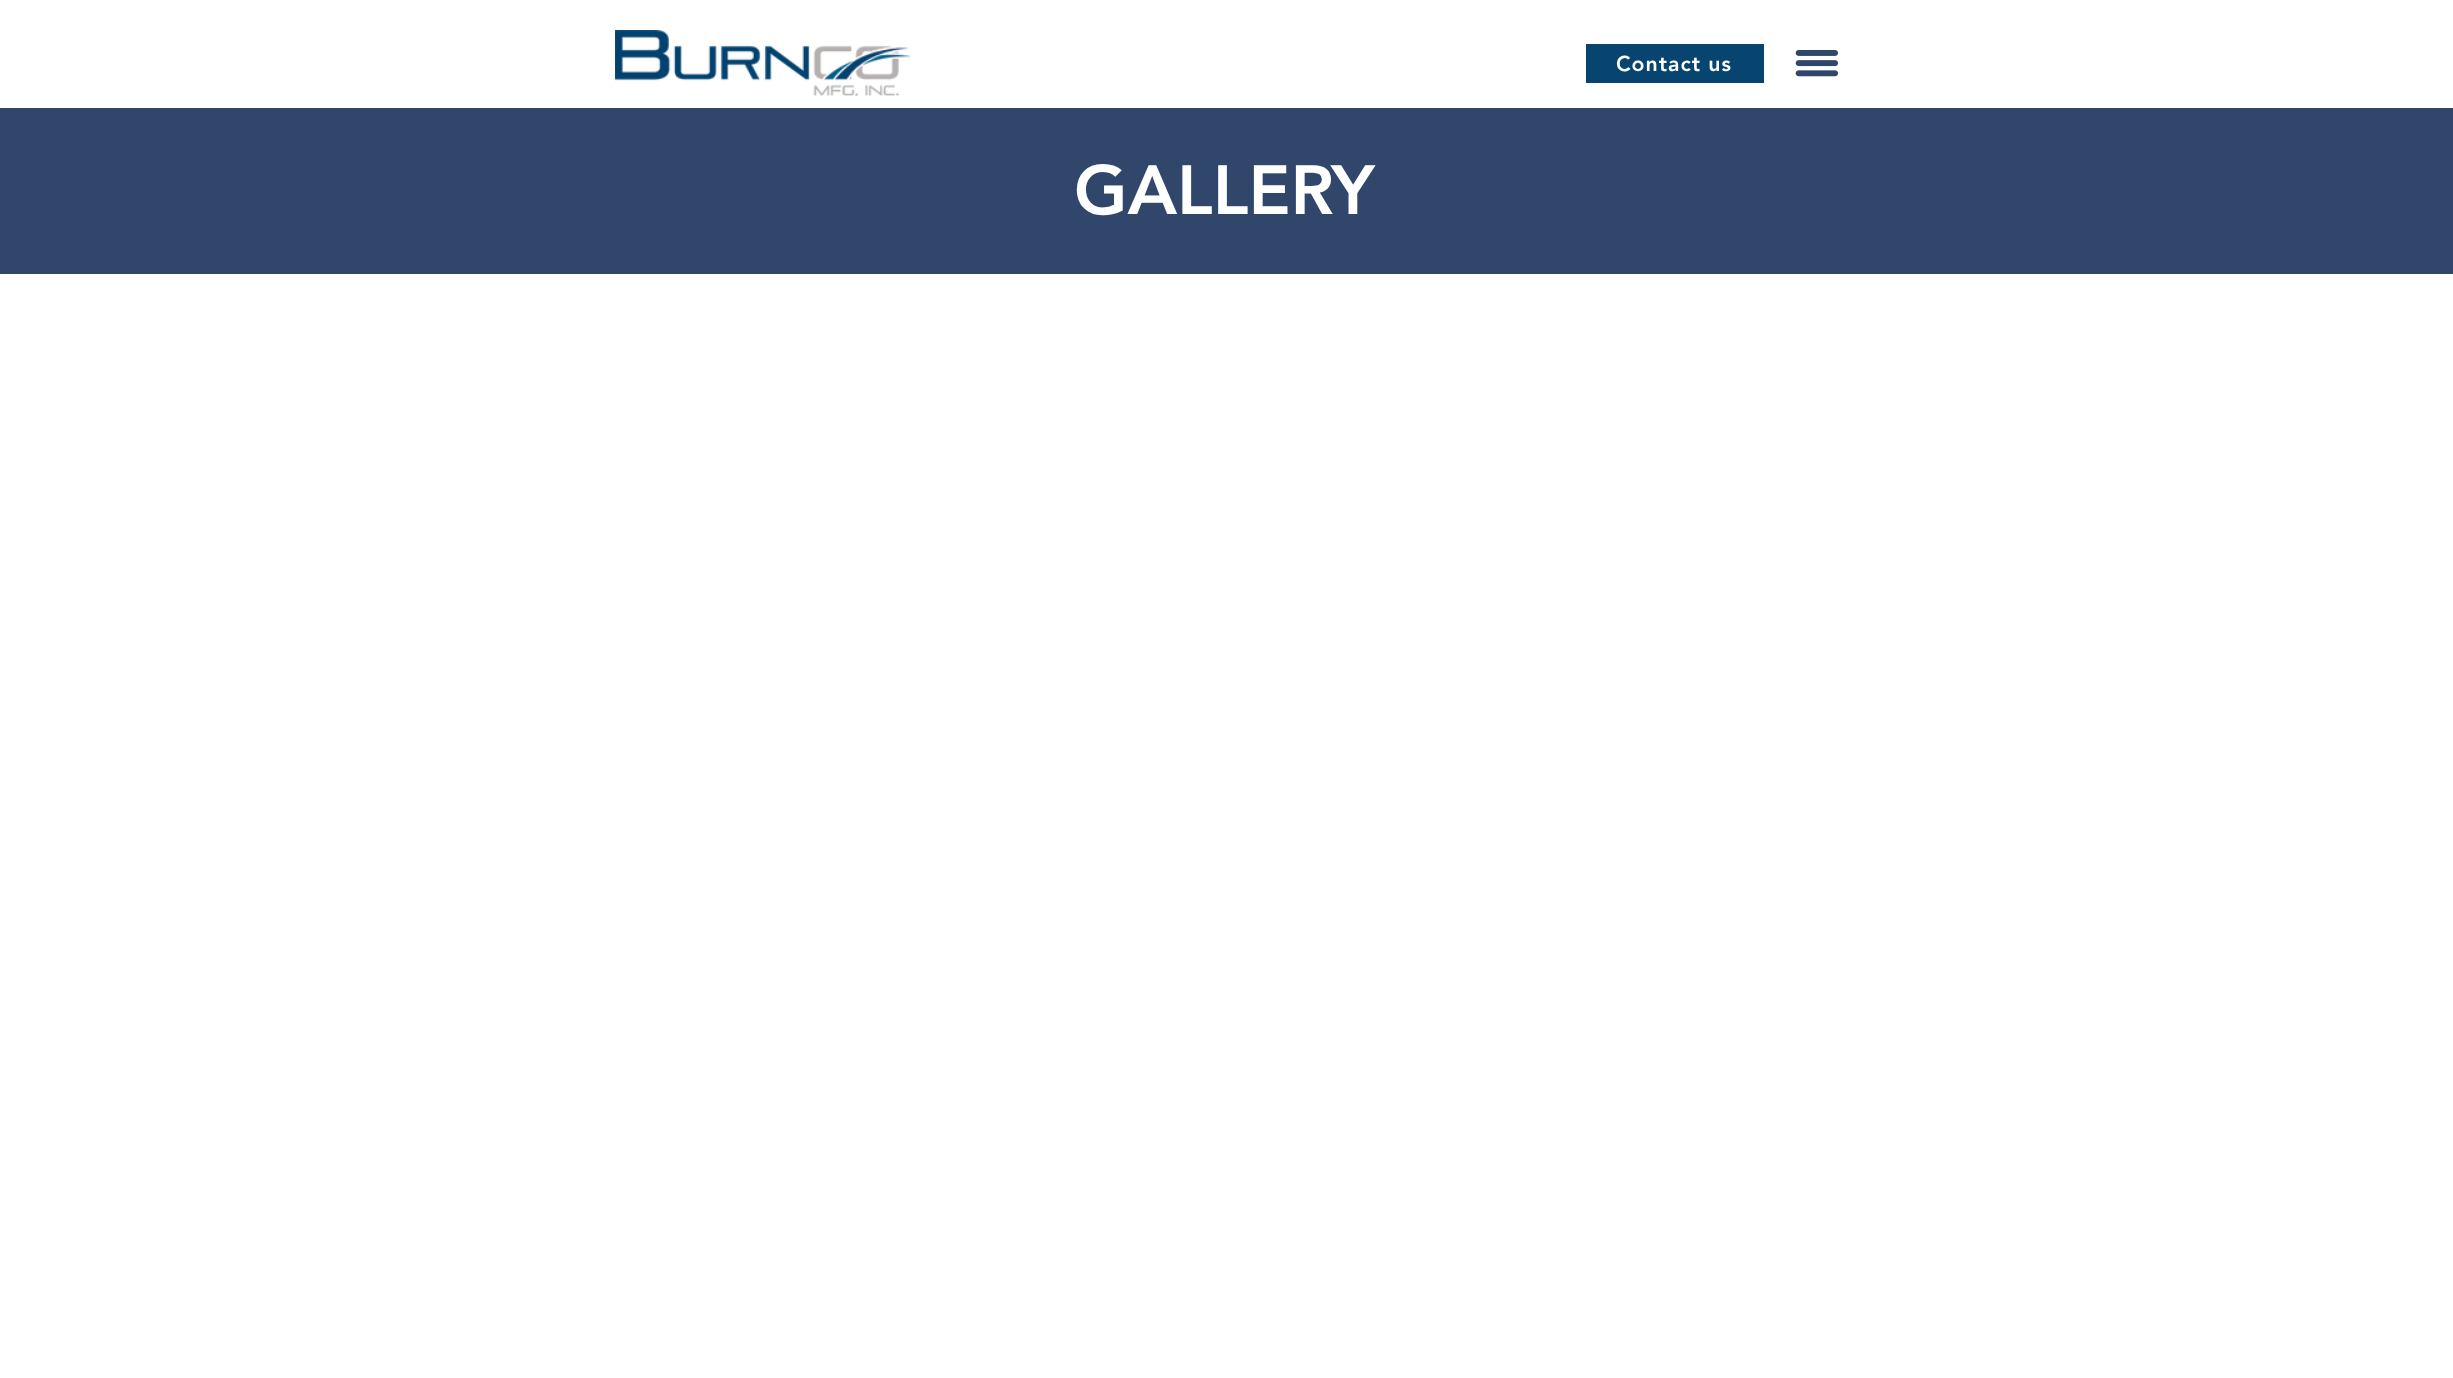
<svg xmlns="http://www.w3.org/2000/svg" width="2453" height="1378">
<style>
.a{font:900 21.25px 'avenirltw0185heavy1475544';letter-spacing:1px;fill:#fff}
.b{font:900 68.75px 'avenirltw0185heavy1475544';fill:#fff}
</style>
<rect width="100%" height="100%" fill="#fff"/>
<image href="1.png" x="615" y="30" width="295" height="66"/>
<path fill="#07446f" d="M1586 44h178v39H1586z"/>
<image href="2.png" x="1795" y="50" width="43" height="27"/>
<path fill="#30466b" d="M0 108h2453v166H0z"/>
<text class="a" x="1616" y="71">Contact us</text>
<text class="b" x="1074" y="214">GALLERY</text>
</svg>
